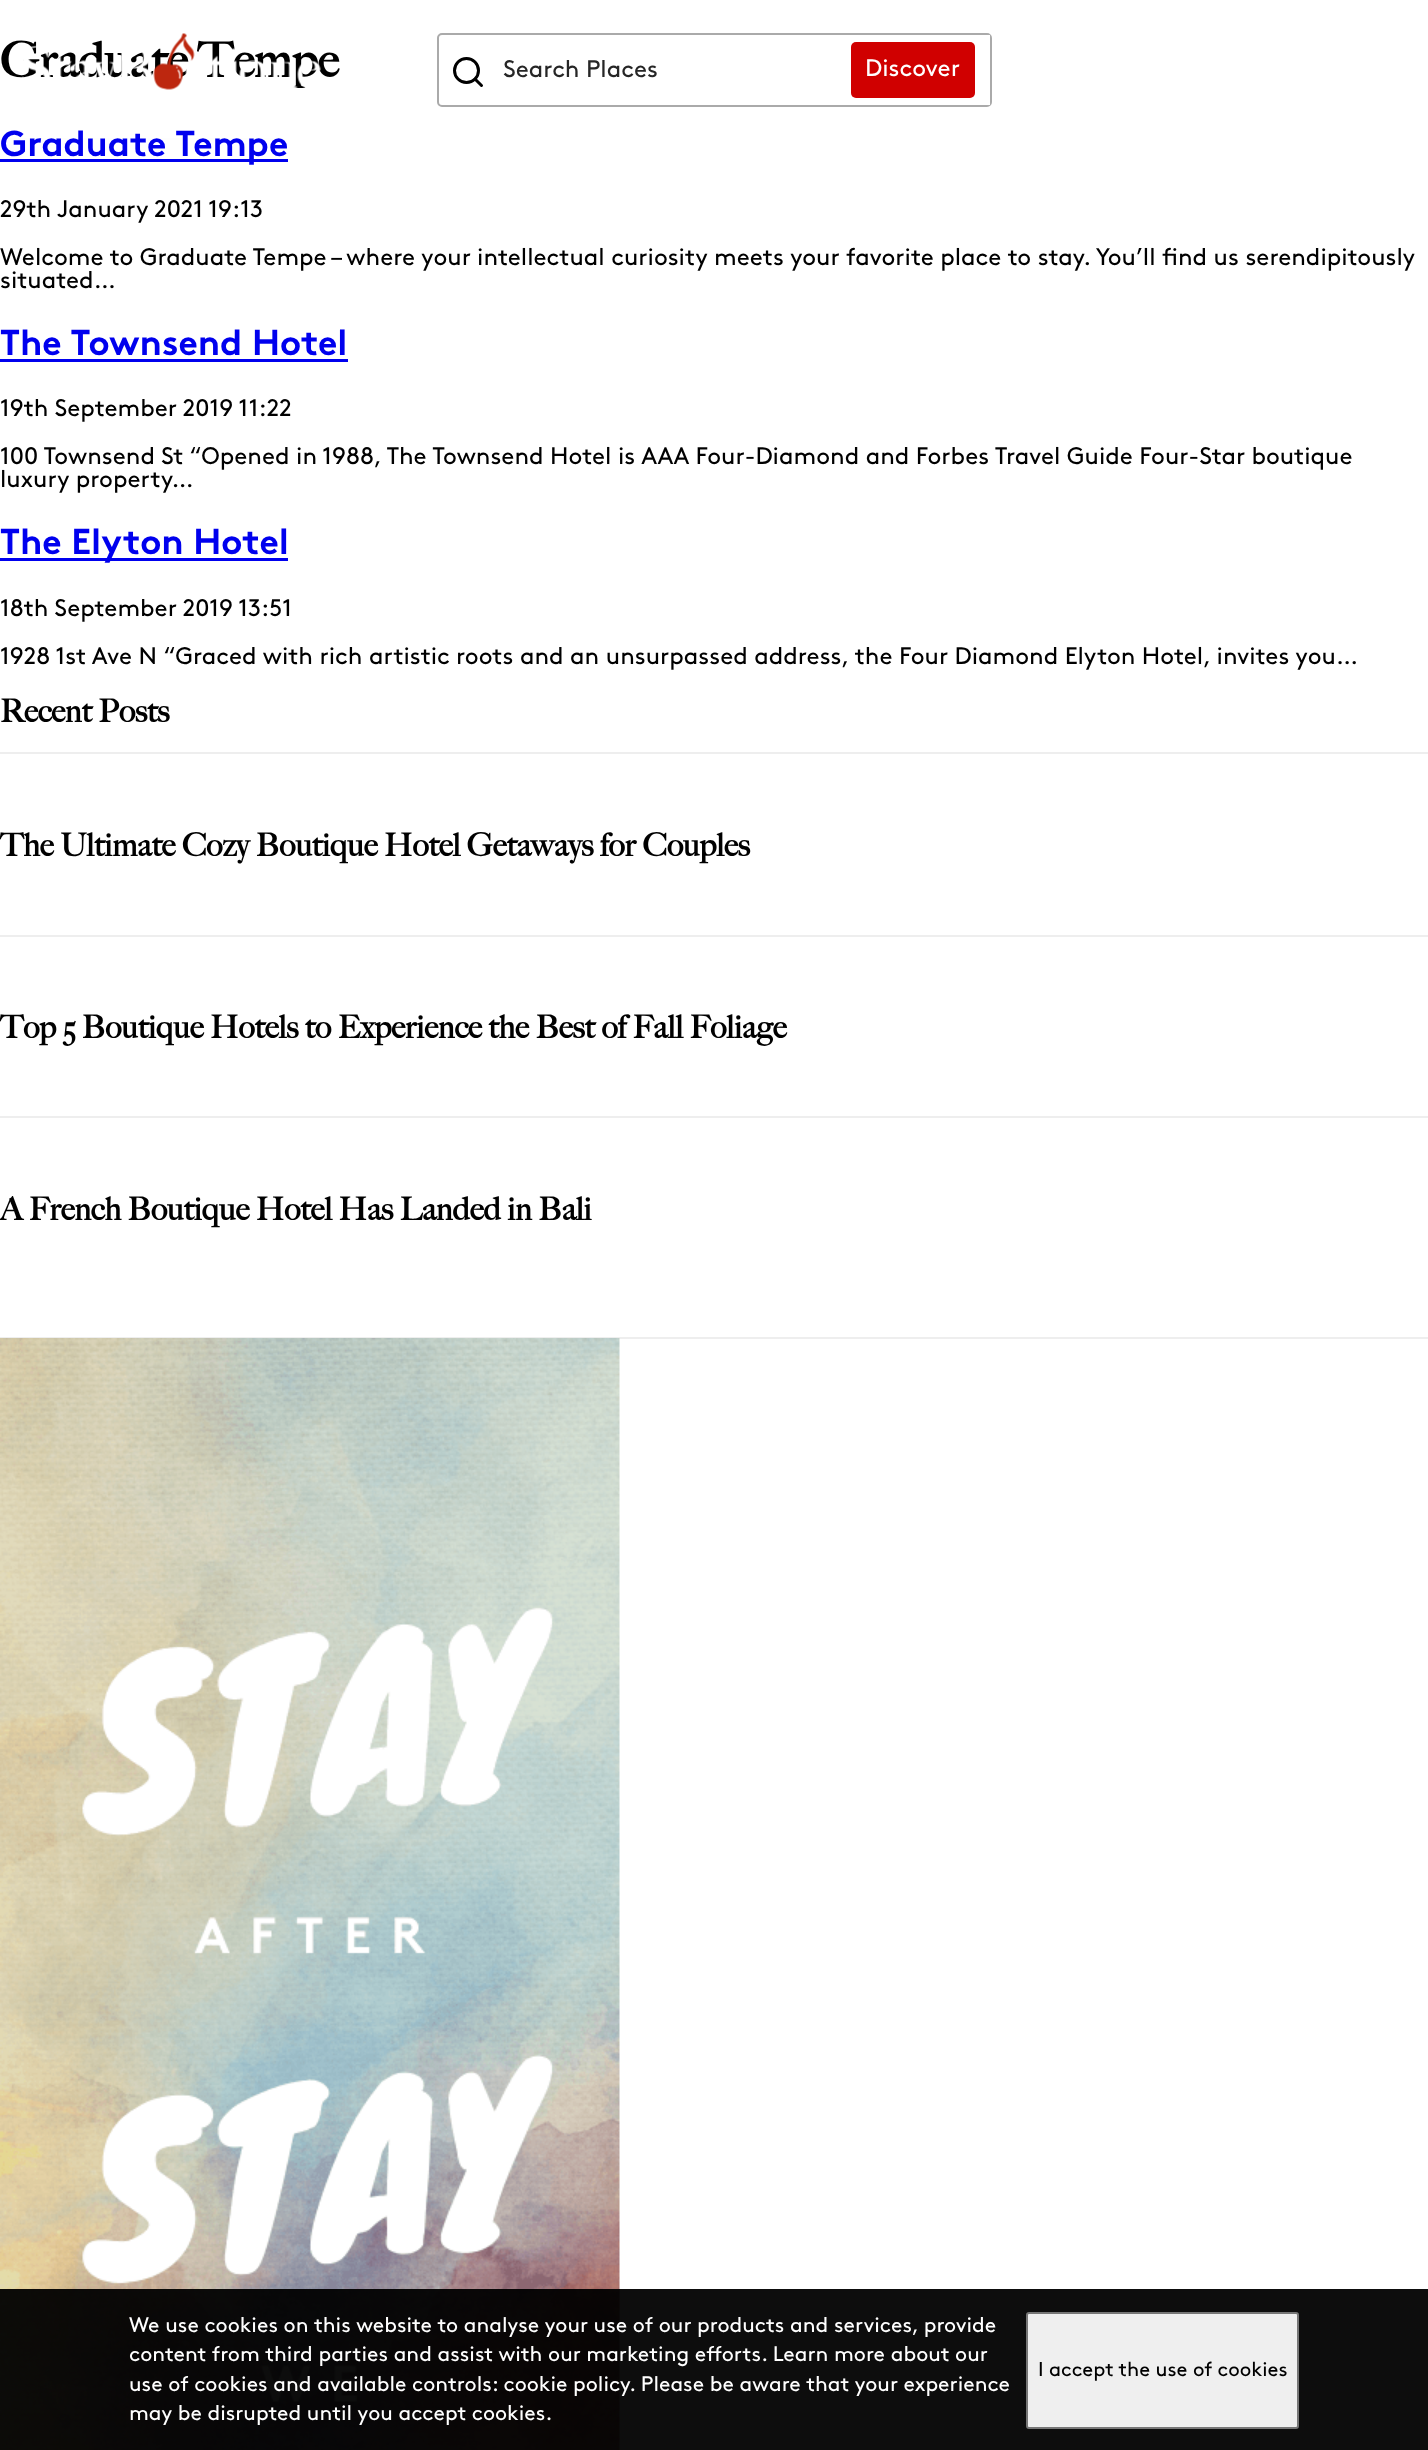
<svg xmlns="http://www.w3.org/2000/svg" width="1428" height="2450">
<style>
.a{font:bold 48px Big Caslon;fill:#000}
.b{font:bold 36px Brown;fill:#00e}
.c{font:24px Brown;fill:#000}
.d{font:bold 31.5px Big Caslon;fill:#000}
.e{font:24px Brown;fill:#262626}
.f{font:24px Brown;fill:#fff}
.g{font:21px Brown;fill:#fff}
.h{font:20px Brown;fill:#000}
</style>
<defs>
<clipPath id="clip1"><path d="M503 60h474v23H503z"/></clipPath>
</defs>
<rect width="100%" height="100%" fill="#fff"/>
<path fill="#00e" d="M0 159h288v3H0z"/>
<path fill="#00e" d="M0 359h348v3H0z"/>
<path fill="#00e" d="M0 558h288v3H0z"/>
<path fill="#eee" d="M0 752h1428v2H0z"/>
<path fill="#eee" d="M0 935h1428v2H0z"/>
<path fill="#eee" d="M0 1116h1428v2H0z"/>
<path fill="#eee" d="M0 1337h1428v2H0z"/>
<image href="1.png" x="0" y="1338" width="620" height="1112"/>
<path fill="#eeeeee1f" d="M0 138h284v2H0z"/>
<rect fill="none" stroke="#aaa" stroke-width="2" x="438" y="34" width="553" height="72" rx="4"/>
<circle fill="none" stroke="#000" stroke-width="3" cx="466.5" cy="70.5" r="12"/>
<path fill="none" stroke="#000" stroke-width="3" stroke-linecap="round" stroke-linejoin="round" d="M481.5 85.5l-6.5-6.5"/>
<path fill="#fff" d="M987 35h3v70H987z"/>
<rect fill="#d00000" x="851" y="42" width="124" height="56" rx="5"/>
<path fill="#000000f2" d="M0 2289h1428v161H0z"/>
<rect fill="#efefef" stroke="#767676" stroke-width="2" x="1027" y="2313" width="271" height="115" rx="2"/>
<text class="a" x="0" y="77">Graduate Tempe</text>
<text class="b" x="0" y="156">Graduate Tempe</text>
<text class="c" x="0" y="217">29th January 2021 19:13</text>
<text class="c" x="0" y="265">Welcome to Graduate Tempe – where your intellectual curiosity meets your favorite place to stay. You’ll find us serendipitously</text>
<text class="c" x="0" y="288">situated…</text>
<text class="b" x="0" y="355">The Townsend Hotel</text>
<text class="c" x="0" y="416">19th September 2019 11:22</text>
<text class="c" x="0" y="464">100 Townsend St “Opened in 1988, The Townsend Hotel is AAA Four-Diamond and Forbes Travel Guide Four-Star boutique</text>
<text class="c" x="0" y="487">luxury property…</text>
<text class="b" x="0" y="554">The Elyton Hotel</text>
<text class="c" x="0" y="616">18th September 2019 13:51</text>
<text class="c" x="0" y="664">1928 1st Ave N “Graced with rich artistic roots and an unsurpassed address, the Four Diamond Elyton Hotel, invites you…</text>
<text class="d" x="0" y="722">Recent Posts</text>
<text class="d" x="0" y="856">The Ultimate Cozy Boutique Hotel Getaways for Couples</text>
<text class="d" x="0" y="1038">Top 5 Boutique Hotels to Experience the Best of Fall Foliage</text>
<text class="d" x="0" y="1220">A French Boutique Hotel Has Landed in Bali</text>
<image href="2.png" x="22" y="33" width="299" height="57"/>
<g clip-path="url(#clip1)">
<text class="e" x="503" y="77">Search Places</text>
</g>
<text class="f" x="865" y="76">Discover</text>
<text class="g" x="129" y="2332">We use cookies on this website to analyse your use of our products and services, provide</text>
<text class="g" x="129" y="2361">content from third parties and assist with our marketing efforts. Learn more about our</text>
<text class="g" x="129" y="2391">use of cookies and available controls: cookie policy. Please be aware that your experience</text>
<text class="g" x="129" y="2420">may be disrupted until you accept cookies.</text>
<text class="h" x="1038" y="2376">I accept the use of cookies</text>
</svg>
